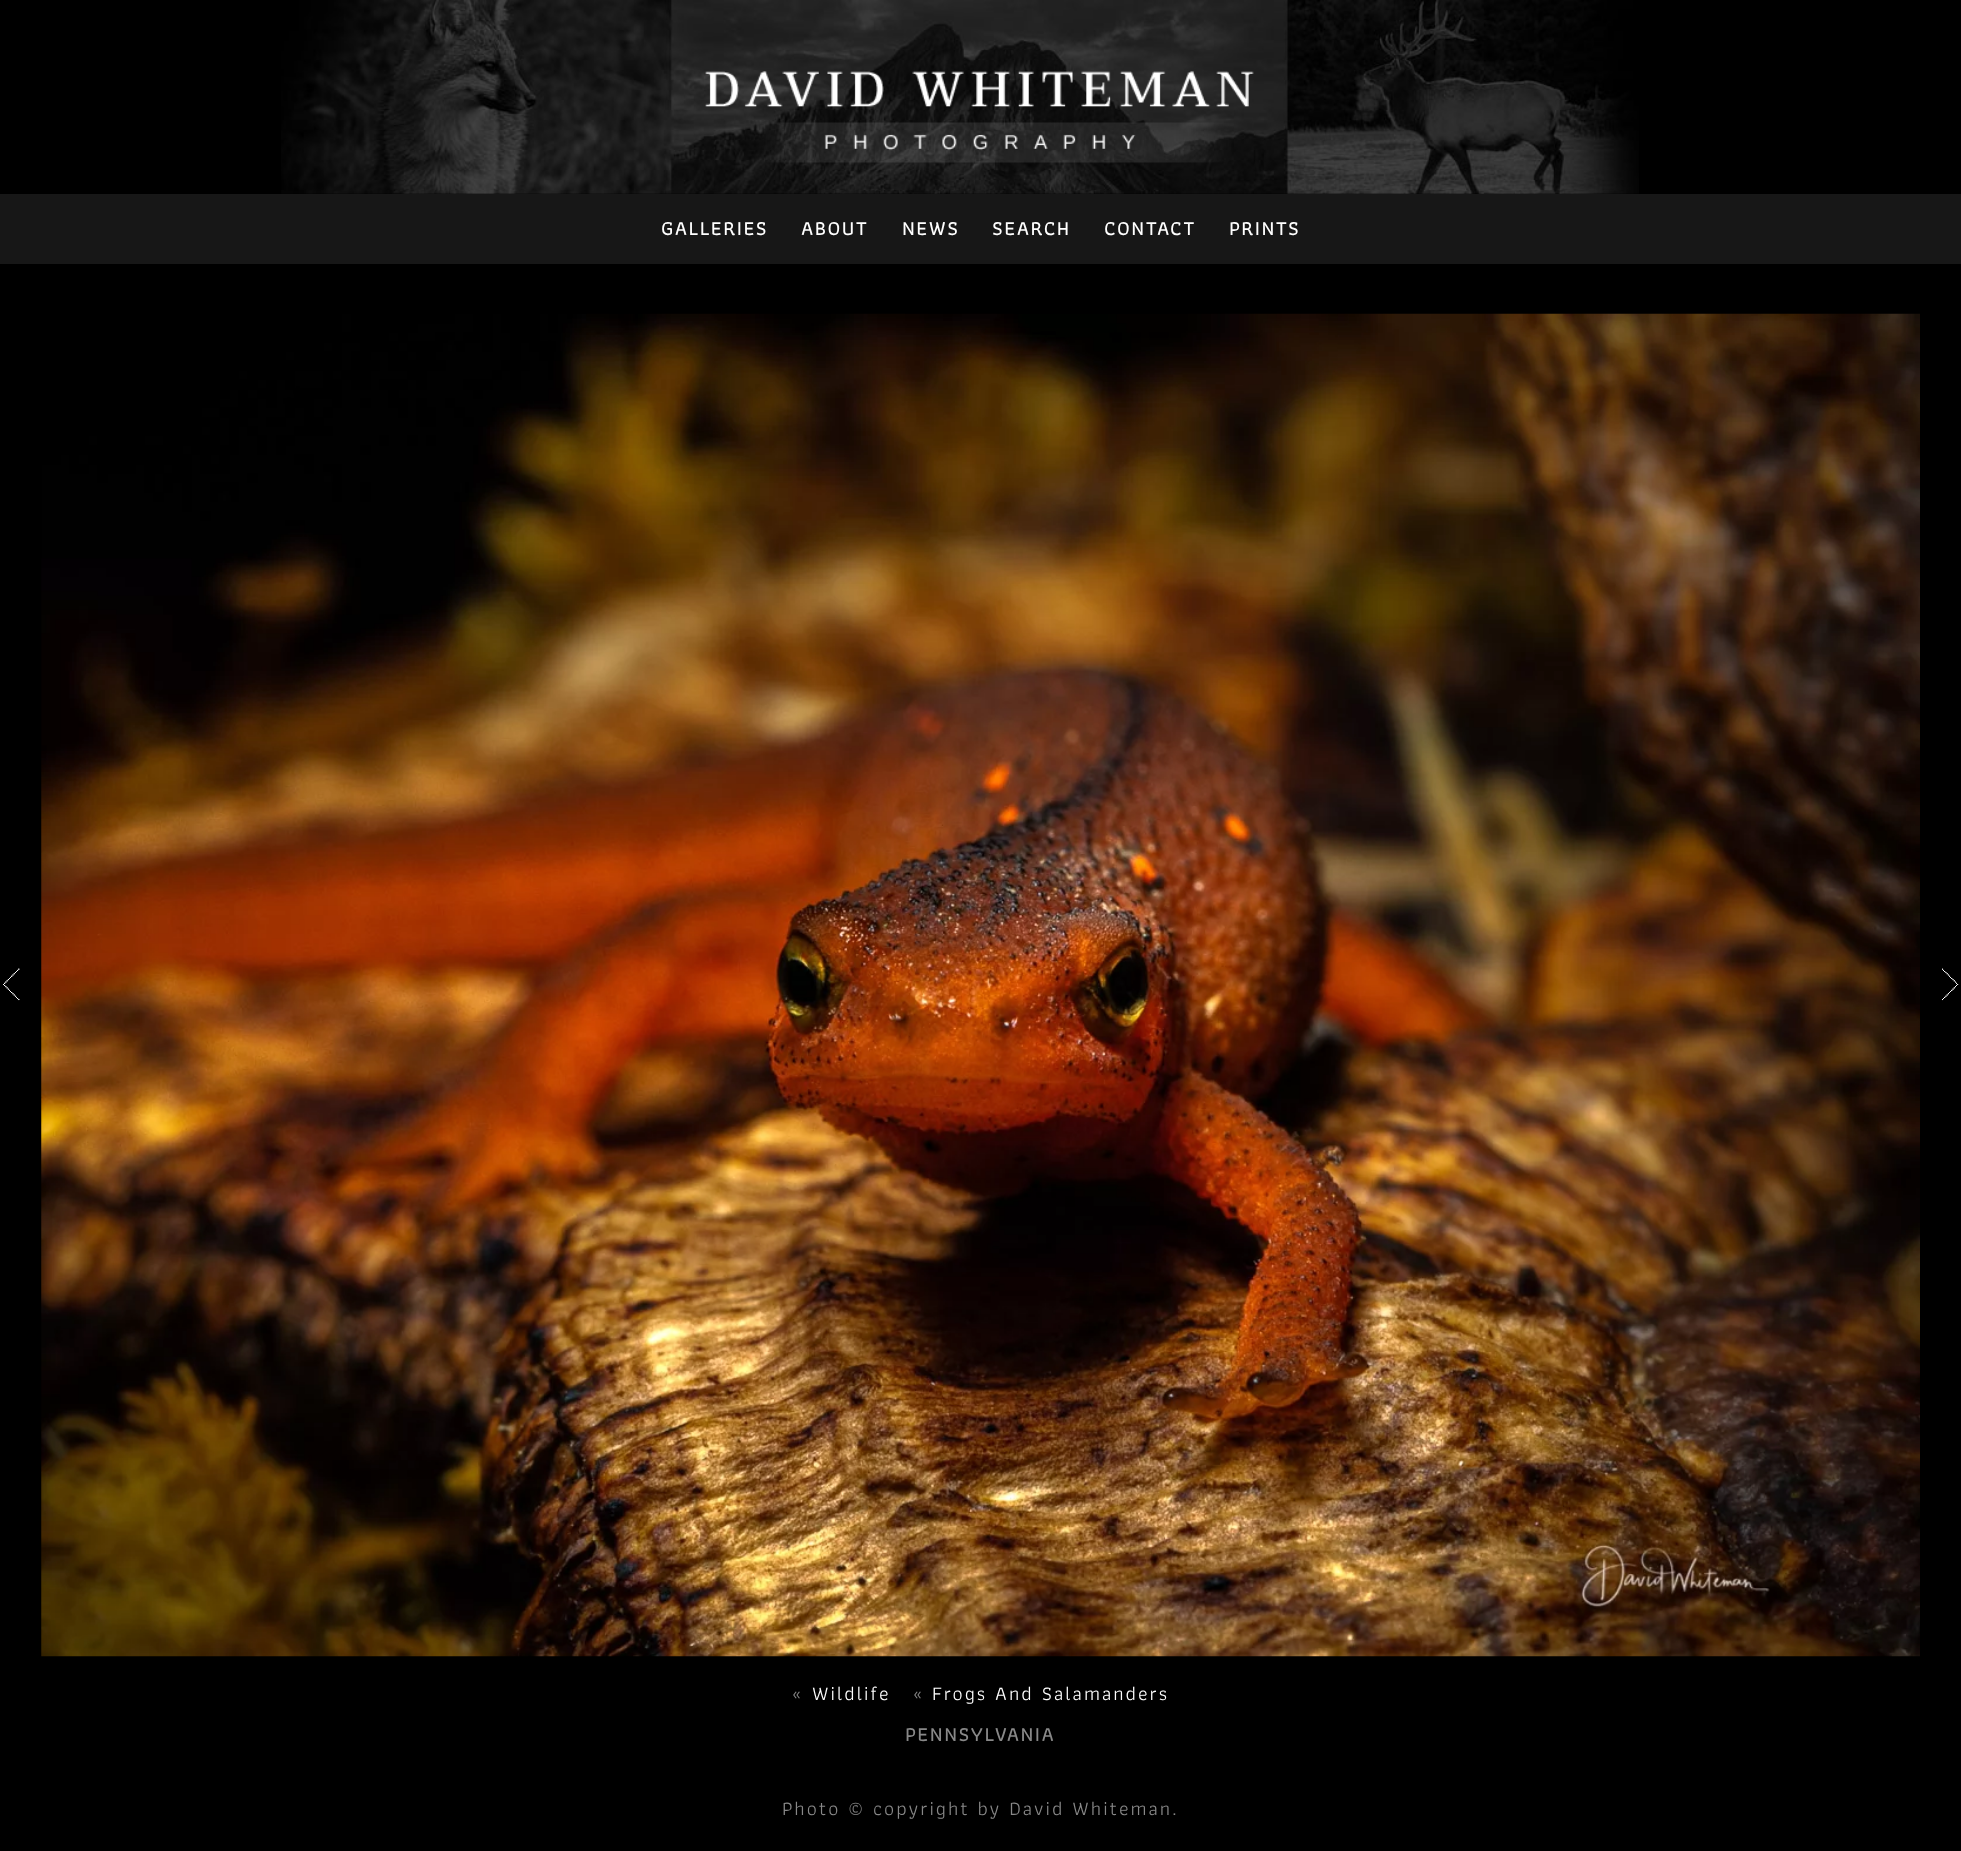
<svg xmlns="http://www.w3.org/2000/svg" width="1961" height="1851">
<style>
.a{font:bold 20px Athiti;letter-spacing:2px;fill:#fff}
.b{font:20px Athiti;letter-spacing:2px;fill:#888}
.c{font:20px Athiti;letter-spacing:2px;fill:#fff}
.d{font:bold 20px Athiti;letter-spacing:2px;fill:#888}
</style>
<rect width="100%" height="100%" fill="#000"/>
<image href="1.png" x="281" y="0" width="1358" height="194"/>
<image href="2.png" x="705" y="71" width="549" height="92"/>
<path fill="#171717" d="M0 194h1961v70H0z"/>
<image href="3.png" x="3" y="968" width="17" height="33"/>
<image href="4.png" x="41" y="313" width="1879" height="1344"/>
<image href="5.png" x="1942" y="968" width="17" height="33"/>
<text class="a" x="661" y="235">GALLERIES</text>
<text class="a" x="801" y="235">ABOUT</text>
<text class="a" x="902" y="235">NEWS</text>
<text class="a" x="992" y="235">SEARCH</text>
<text class="a" x="1104" y="235">CONTACT</text>
<text class="a" x="1229" y="235">PRINTS</text>
<text class="b" x="792" y="1700">«</text>
<text class="c" x="812" y="1700">Wildlife</text>
<text class="b" x="913" y="1700">«</text>
<text class="c" x="932" y="1700">Frogs And Salamanders</text>
<text class="d" x="905" y="1741">PENNSYLVANIA</text>
<text class="b" x="782" y="1815">Photo © copyright by David Whiteman.</text>
</svg>
